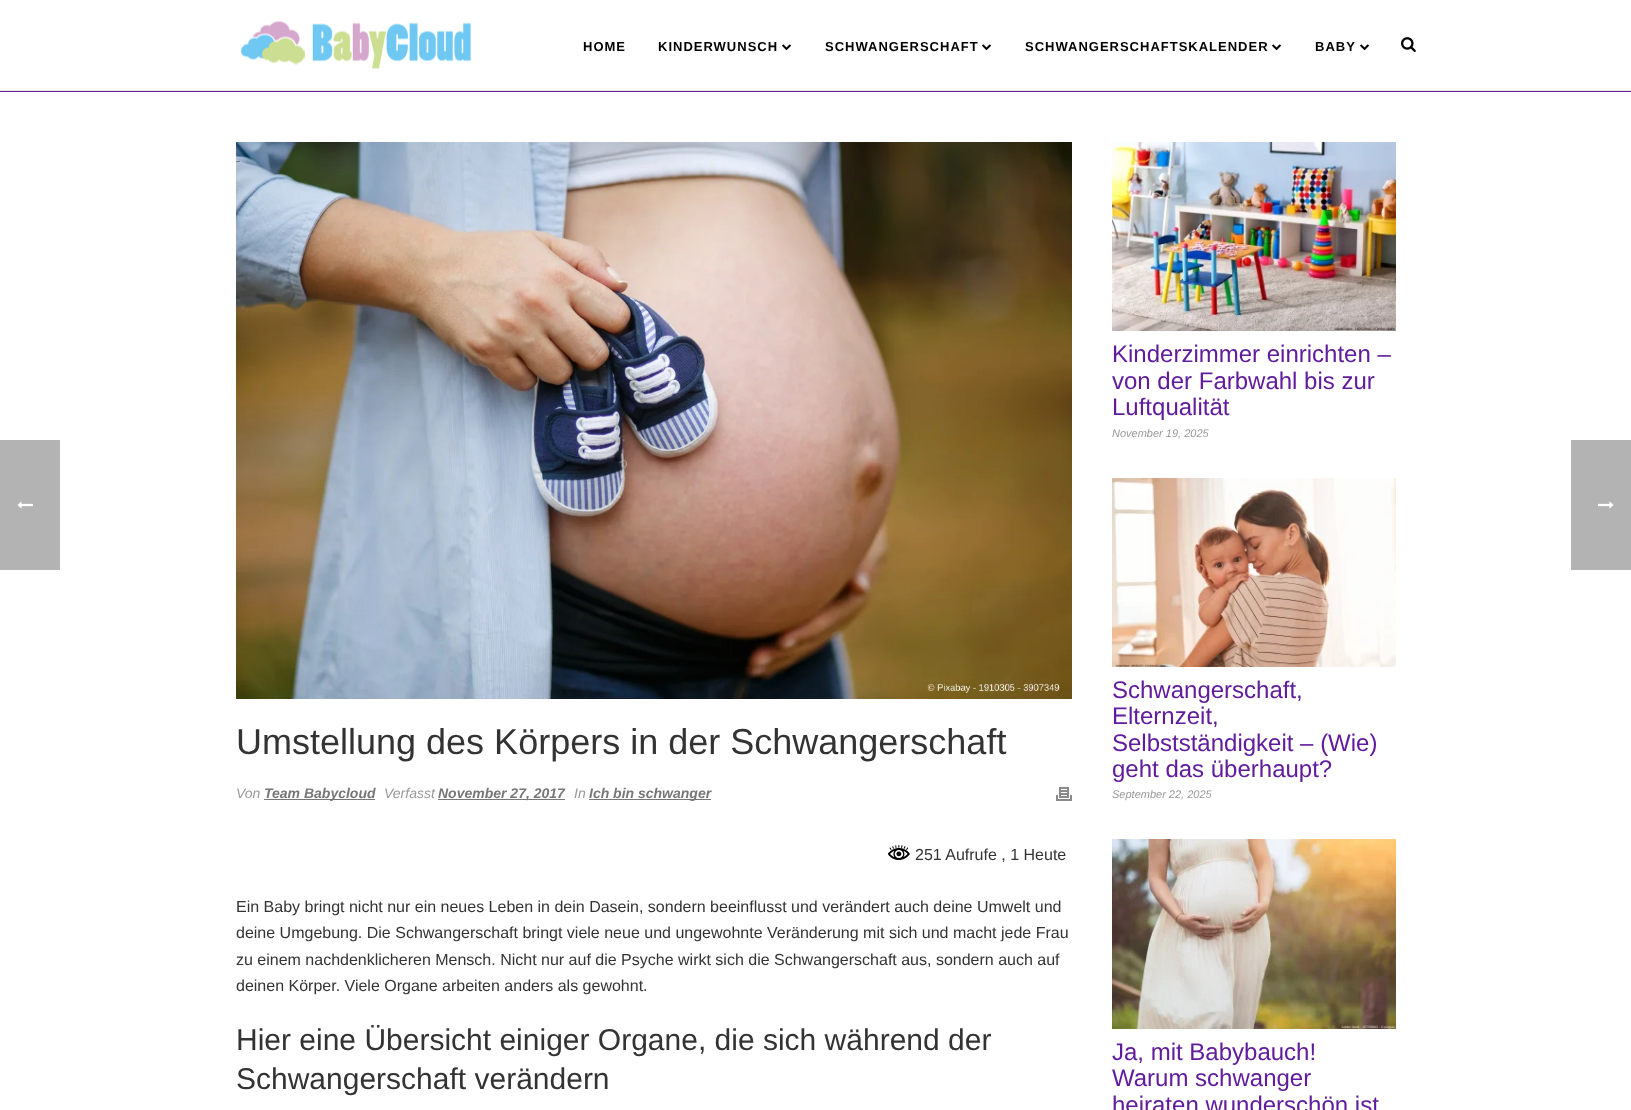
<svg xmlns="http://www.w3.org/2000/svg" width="1631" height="1110">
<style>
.a{font:bold 13px Liberation Sans;letter-spacing:1px;fill:#000}
.b{font:36px Liberation Sans;fill:#333}
.c{font:italic 14px Liberation Sans;fill:#999}
.d{font:italic bold 14px Liberation Sans;fill:#777}
.e{font:16px Liberation Sans;fill:#333}
.f{font:30px Liberation Sans;fill:#333}
.g{font:24px Liberation Sans;fill:#601c9c}
.h{font:italic 11px Liberation Sans;fill:#999}
</style>
<rect width="100%" height="100%" fill="#fff"/>
<path fill="#b3b3b3" d="M0 440h60v130H0z"/>
<image href="1.png" x="17" y="501" width="16" height="8"/>
<path fill="#5d1b97" d="M0 91h1631v1H0z"/>
<path fill="#ededed" d="M0 90h1631v1H0z"/>
<image href="2.png" x="241" y="21" width="230" height="48"/>
<image href="3.png" x="782" y="44" width="9" height="7"/>
<image href="3.png" x="982" y="44" width="9" height="7"/>
<image href="3.png" x="1272" y="44" width="9" height="7"/>
<image href="3.png" x="1360" y="44" width="9" height="7"/>
<image href="4.png" x="1401" y="37" width="15" height="15"/>
<image href="5.png" x="236" y="142" width="836" height="557"/>
<path fill="#777" d="M236 161h4v1H236z"/>
<path fill="#777" d="M264 799h111v1H264z"/>
<path fill="#777" d="M438 799h127v1H438z"/>
<path fill="#777" d="M589 799h122v1H589z"/>
<image href="6.png" x="1056" y="787" width="16" height="14"/>
<image href="7.png" x="887" y="845" width="23" height="15"/>
<image href="8.png" x="1112" y="142" width="284" height="189"/>
<image href="9.png" x="1112" y="478" width="284" height="189"/>
<image href="10.png" x="1112" y="839" width="284" height="190"/>
<path fill="#b3b3b3" d="M1571 440h60v130H1571z"/>
<image href="11.png" x="1598" y="501" width="16" height="8"/>
<text class="a" x="583" y="51">HOME</text>
<text class="a" x="658" y="51">KINDERWUNSCH</text>
<text class="a" x="825" y="51">SCHWANGERSCHAFT</text>
<text class="a" x="1025" y="51">SCHWANGERSCHAFTSKALENDER</text>
<text class="a" x="1315" y="51">BABY</text>
<text class="b" x="236" y="754">Umstellung des Körpers in der Schwangerschaft</text>
<text class="c" x="236" y="798">Von</text>
<text class="d" x="264" y="798">Team Babycloud</text>
<text class="c" x="384" y="798">Verfasst</text>
<text class="d" x="438" y="798">November 27, 2017</text>
<text class="c" x="574" y="798">In</text>
<text class="d" x="589" y="798">Ich bin schwanger</text>
<text class="e" x="915" y="860">251 Aufrufe , 1 Heute</text>
<text class="e" x="236" y="912">Ein Baby bringt nicht nur ein neues Leben in dein Dasein, sondern beeinflusst und verändert auch deine Umwelt und</text>
<text class="e" x="236" y="938">deine Umgebung. Die Schwangerschaft bringt viele neue und ungewohnte Veränderung mit sich und macht jede Frau</text>
<text class="e" x="236" y="965">zu einem nachdenklicheren Mensch. Nicht nur auf die Psyche wirkt sich die Schwangerschaft aus, sondern auch auf</text>
<text class="e" x="236" y="991">deinen Körper. Viele Organe arbeiten anders als gewohnt.</text>
<text class="f" x="236" y="1050">Hier eine Übersicht einiger Organe, die sich während der</text>
<text class="f" x="236" y="1089">Schwangerschaft verändern</text>
<text class="g" x="1112" y="362">Kinderzimmer einrichten –</text>
<text class="g" x="1112" y="389">von der Farbwahl bis zur</text>
<text class="g" x="1112" y="415">Luftqualität</text>
<text class="h" x="1112" y="437">November 19, 2025</text>
<text class="g" x="1112" y="698">Schwangerschaft,</text>
<text class="g" x="1112" y="724">Elternzeit,</text>
<text class="g" x="1112" y="751">Selbstständigkeit – (Wie)</text>
<text class="g" x="1112" y="777">geht das überhaupt?</text>
<text class="h" x="1112" y="798">September 22, 2025</text>
<text class="g" x="1112" y="1060">Ja, mit Babybauch!</text>
<text class="g" x="1112" y="1086">Warum schwanger</text>
<text class="g" x="1112" y="1113">heiraten wunderschön ist</text>
</svg>
